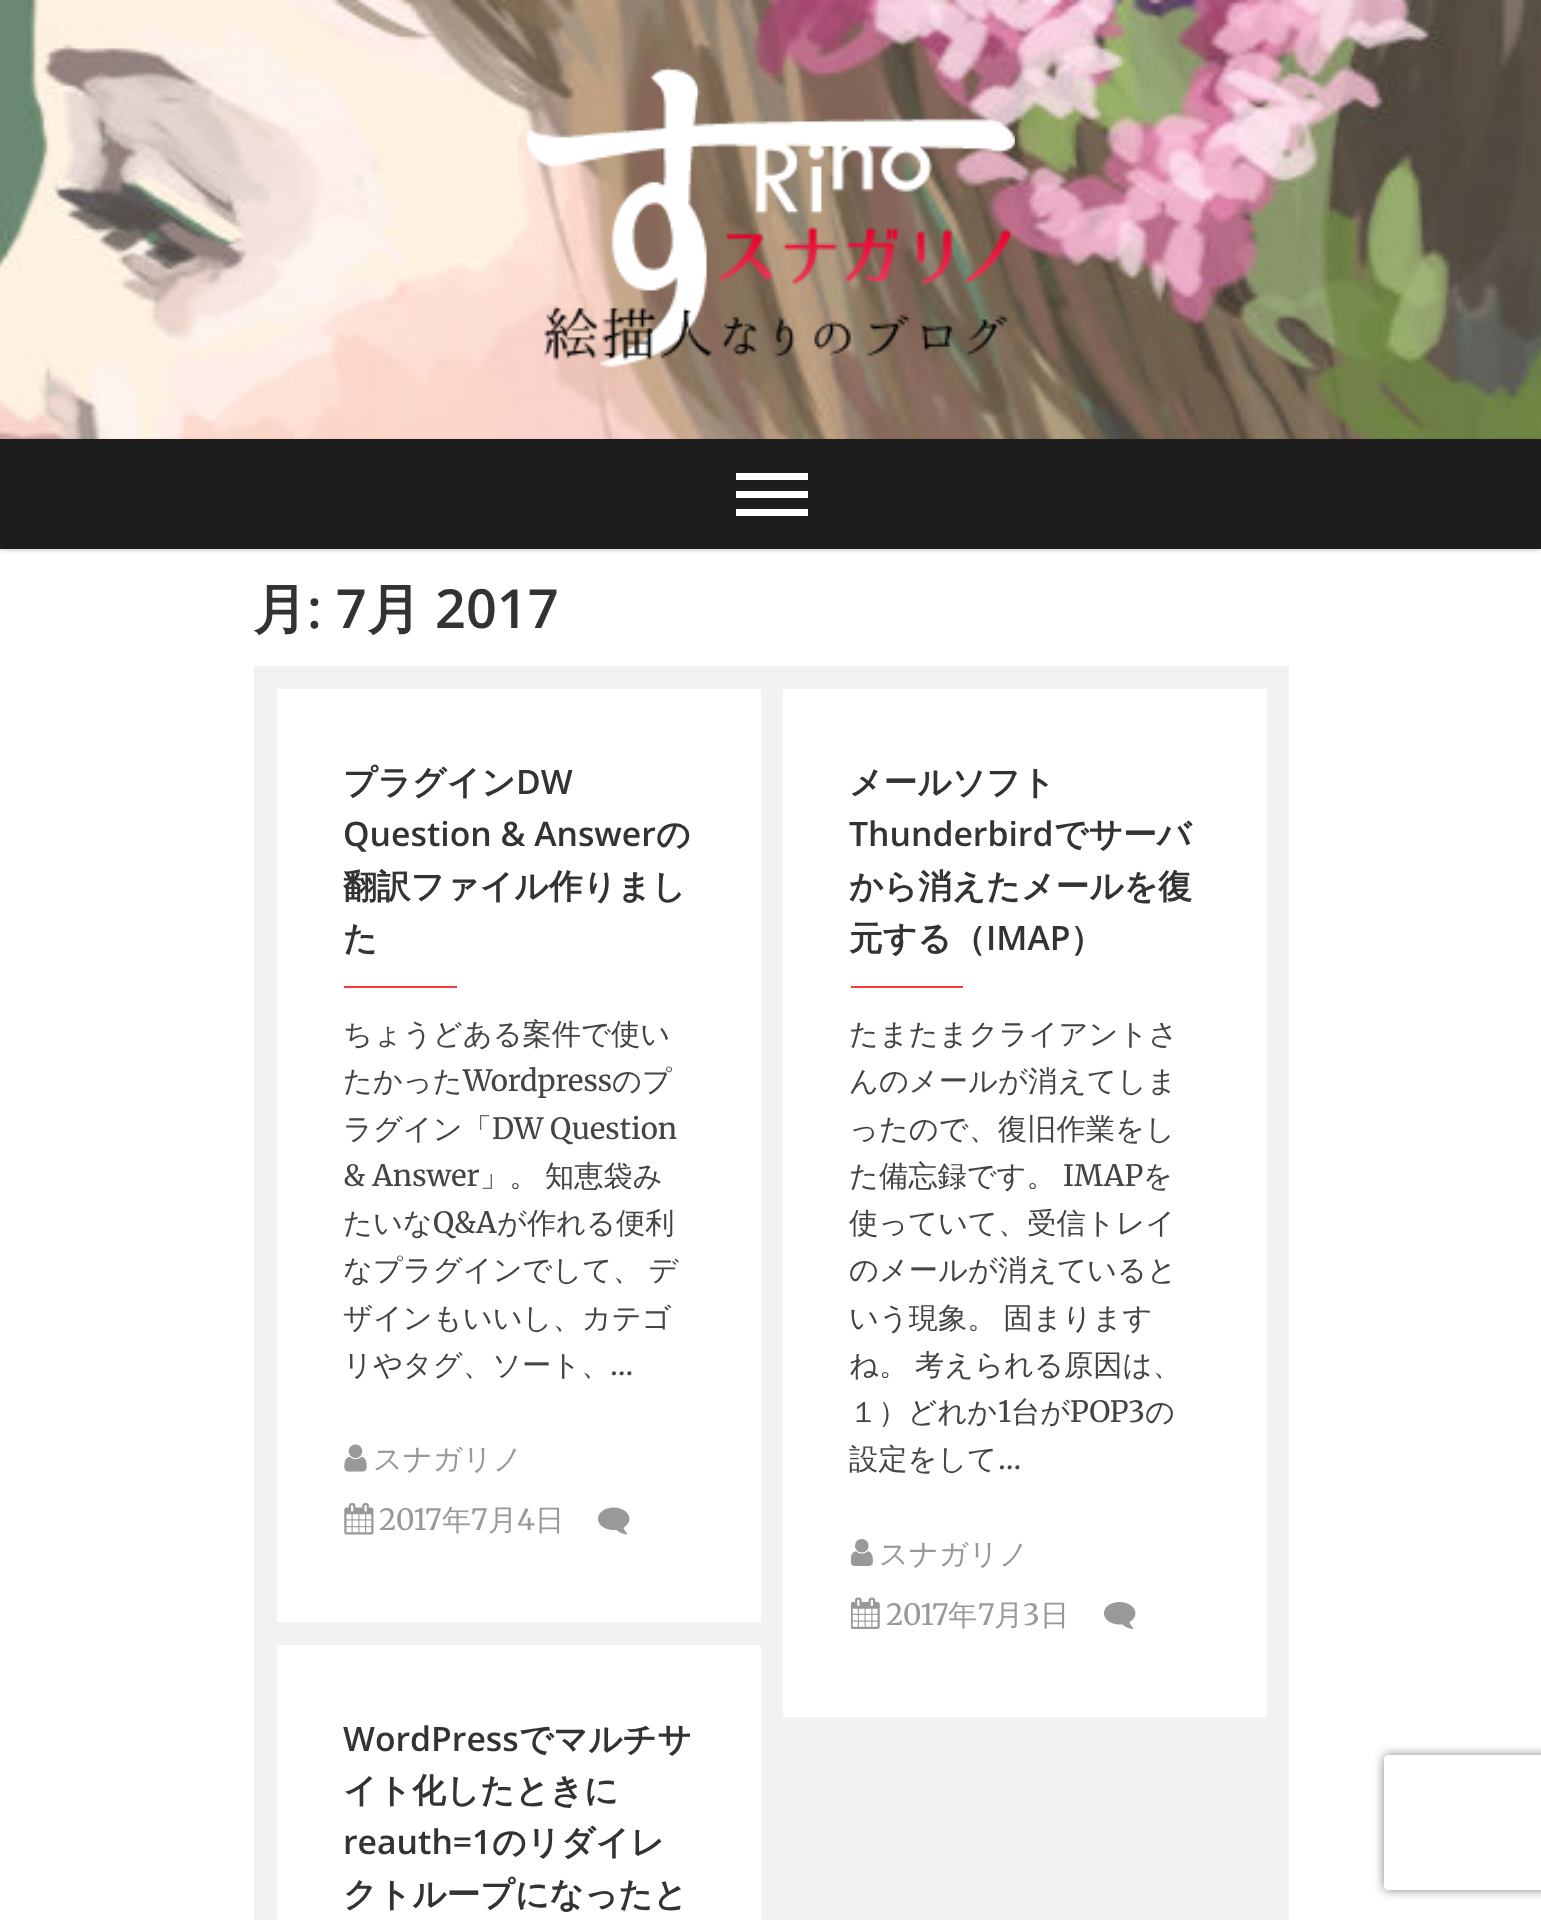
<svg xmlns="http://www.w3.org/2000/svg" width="1541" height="1920">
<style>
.a{font:bold 54px WenQuanYi Zen Hei;fill:#333}
.b{font:600 54px Open Sans;fill:#333}
.c{font:bold 33.75px WenQuanYi Zen Hei;fill:#333}
.d{font:600 33.75px Open Sans;fill:#333}
.e{font:500 29.25px WenQuanYi Zen Hei;fill:#444}
.f{font:300 29.25px Merriweather;fill:#444}
.g{font:500 29.25px WenQuanYi Zen Hei;fill:#999}
.h{font:300 29.25px Merriweather;fill:#999}
</style>
<defs>
<clipPath id="clip1"><path d="M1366 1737h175v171h-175zm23 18h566c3 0 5 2 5 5v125c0 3-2 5-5 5h-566c-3 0-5-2-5-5v-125c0-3 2-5 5-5z" clip-rule="evenodd"/></clipPath>
</defs>
<rect width="100%" height="100%" fill="#fff"/>
<image href="1.png" x="0" y="0" width="1541" height="439"/>
<image href="2.png" x="526" y="67" width="489" height="301"/>
<path fill="#00000026" filter="blur(2px)" d="M0 441h1541v110H0z"/>
<path fill="#1d1d1d" d="M0 439h1541v110H0z"/>
<path fill="#fff" d="M736 473h72v7H736z"/>
<path fill="#fff" d="M736 491h72v7H736z"/>
<path fill="#fff" d="M736 509h72v7H736z"/>
<path fill="#f2f2f2" d="M254 666h1035v1254H254z"/>
<path fill="#fff" d="M277 689h484v933H277z"/>
<path fill="#ff3838" d="M344 986h113v2H344z"/>
<image href="3.png" x="344" y="1444" width="23" height="28"/>
<image href="4.png" x="344" y="1503" width="30" height="32"/>
<image href="5.png" x="598" y="1507" width="32" height="28"/>
<path fill="#fff" d="M783 689h484v1028H783z"/>
<path fill="#ff3838" d="M851 986h112v2H851z"/>
<image href="6.png" x="851" y="1539" width="22" height="27"/>
<image href="7.png" x="851" y="1597" width="29" height="32"/>
<image href="8.png" x="1103" y="1602" width="33" height="27"/>
<path fill="#fff" d="M277 1645h484v275H277z"/>
<g clip-path="url(#clip1)">
<rect fill="#808080" filter="blur(5.5px)" x="1384" y="1755" width="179" height="135" rx="5"/>
</g>
<text class="a" x="253" y="628">月</text>
<text class="b" x="307" y="628">: 7</text>
<text class="a" x="367" y="628">月</text>
<text class="b" x="435" y="628">2017</text>
<text class="c" x="343" y="794">プラグイン</text>
<text class="d" x="516" y="794">DW</text>
<text class="d" x="343" y="846">Question &amp; Answer</text>
<text class="c" x="656" y="846">の</text>
<text class="c" x="343" y="898">翻訳ファイル作りまし</text>
<text class="c" x="343" y="950">た</text>
<text class="e" x="343" y="1044">ちょうどある案件で使い</text>
<text class="e" x="343" y="1091">たかった</text>
<text class="f" x="463" y="1091">Wordpress</text>
<text class="e" x="612" y="1091">のプ</text>
<text class="e" x="343" y="1139">ラグイン「</text>
<text class="f" x="492" y="1139">DW Question</text>
<text class="f" x="343" y="1186">&amp; Answer</text>
<text class="e" x="480" y="1186">」。</text>
<text class="e" x="545" y="1186">知恵袋み</text>
<text class="e" x="343" y="1233">たいな</text>
<text class="f" x="433" y="1233">Q&amp;A</text>
<text class="e" x="497" y="1233">が作れる便利</text>
<text class="e" x="343" y="1280" word-spacing="-2">なプラグインでして、 デ</text>
<text class="e" x="343" y="1328">ザインもいいし、カテゴ</text>
<text class="e" x="343" y="1375">リやタグ、ソート、</text>
<text class="f" x="610" y="1375">…</text>
<text class="g" x="373" y="1469">スナガリノ</text>
<text class="h" x="379" y="1530">2017</text>
<text class="g" x="442" y="1530">年</text>
<text class="h" x="471" y="1530">7</text>
<text class="g" x="488" y="1530">月</text>
<text class="h" x="517" y="1530">4</text>
<text class="g" x="535" y="1530">日</text>
<text class="c" x="849" y="794">メールソフト</text>
<text class="d" x="849" y="846">Thunderbird</text>
<text class="c" x="1054" y="846">でサーバ</text>
<text class="c" x="849" y="898">から消えたメールを復</text>
<text class="c" x="849" y="950">元する（</text>
<text class="d" x="986" y="950">IMAP</text>
<text class="c" x="1070" y="950">）</text>
<text class="e" x="849" y="1044">たまたまクライアントさ</text>
<text class="e" x="849" y="1091">んのメールが消えてしま</text>
<text class="e" x="849" y="1139">ったので、復旧作業をし</text>
<text class="e" x="849" y="1186">た備忘録です。</text>
<text class="f" x="1063" y="1186">IMAP</text>
<text class="e" x="1143" y="1186">を</text>
<text class="e" x="849" y="1233">使っていて、受信トレイ</text>
<text class="e" x="849" y="1280">のメールが消えていると</text>
<text class="e" x="849" y="1328" word-spacing="-2">いう現象。 固まります</text>
<text class="e" x="849" y="1375" word-spacing="-2">ね。 考えられる原因は、</text>
<text class="e" x="849" y="1422">１）どれか</text>
<text class="f" x="998" y="1422">1</text>
<text class="e" x="1011" y="1422">台が</text>
<text class="f" x="1070" y="1422">POP3</text>
<text class="e" x="1145" y="1422">の</text>
<text class="e" x="849" y="1469">設定をして</text>
<text class="f" x="998" y="1469">…</text>
<text class="g" x="879" y="1564">スナガリノ</text>
<text class="h" x="886" y="1625">2017</text>
<text class="g" x="948" y="1625">年</text>
<text class="h" x="978" y="1625">7</text>
<text class="g" x="994" y="1625">月</text>
<text class="h" x="1023" y="1625">3</text>
<text class="g" x="1040" y="1625">日</text>
<text class="d" x="343" y="1751">WordPress</text>
<text class="c" x="519" y="1751">でマルチサ</text>
<text class="c" x="343" y="1802">イト化したときに</text>
<text class="d" x="343" y="1854">reauth=1</text>
<text class="c" x="492" y="1854">のリダイレ</text>
<text class="c" x="343" y="1906">クトループになったと</text>
</svg>
